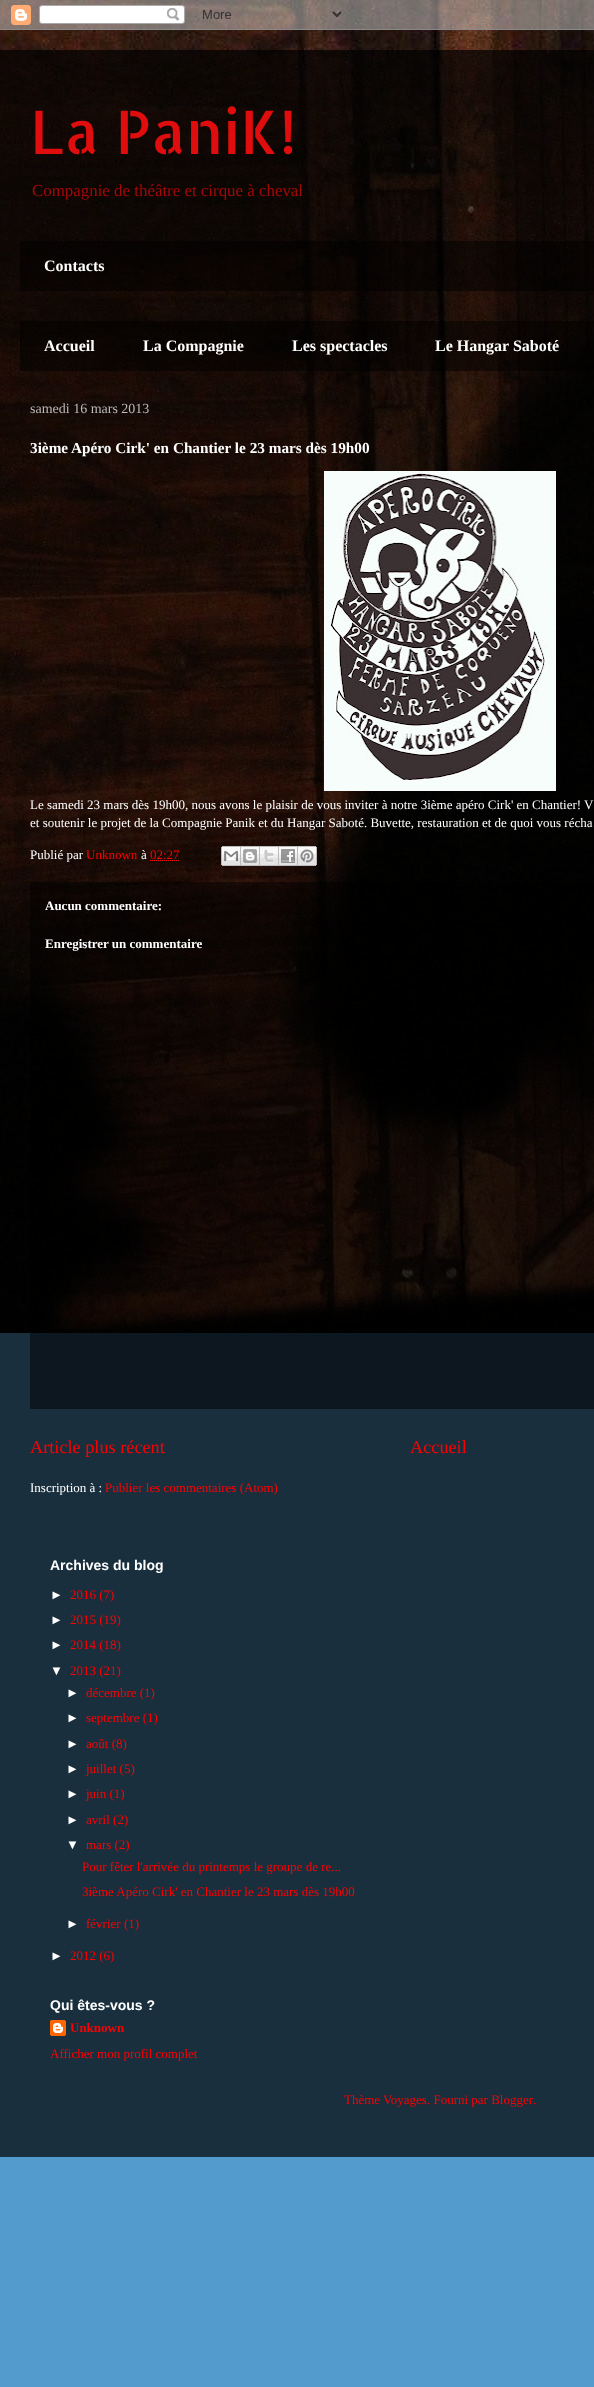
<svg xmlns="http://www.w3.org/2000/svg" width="594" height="2387">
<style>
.a{font:60px Allerta Stencil;fill:#df0d0d}
.b{font:16.9px Liberation Serif;fill:#a30808}
.c{font:bold 16px Liberation Serif;fill:#fff}
.d{font:14px Liberation Serif;fill:#bbb}
.e{font:bold 15.25px Liberation Serif;fill:#fff}
.f{font:13px Liberation Serif;fill:#fff}
.g{font:13px Liberation Serif;fill:#f00}
.h{font:bold 13px Liberation Serif;fill:#fff}
.i{font:18.25px Liberation Serif;fill:#f00}
.j{font:bold 14px Liberation Sans;fill:#fff}
.k{font:13px Liberation Sans;fill:#fff}
.l{font:bold 13px Liberation Serif;fill:#f00}
</style>
<rect width="100%" height="100%" fill="#539bcd"/>
<path fill="#192f3e" d="M0 1333h594v824H0z"/>
<image href="1.png" x="0" y="0" width="594" height="1333"/>
<image href="2.png" x="0" y="0" width="594" height="30"/>
<path fill="#00000080" d="M20 241h574v50H20z"/>
<path fill="#00000080" d="M20 321h574v50H20z"/>
<image href="3.png" x="324" y="471" width="232" height="320"/>
<path fill="none" stroke="#f00" stroke-dasharray="1 1" d="M150 860.5h29.5"/>
<image href="4.png" x="221" y="846" width="20" height="20"/>
<image href="5.png" x="241" y="846" width="19" height="20"/>
<image href="6.png" x="260" y="846" width="19" height="20"/>
<image href="7.png" x="279" y="846" width="19" height="20"/>
<image href="8.png" x="298" y="846" width="19" height="20"/>
<path fill="#00000080" d="M30 882h564v527H30z"/>
<image href="9.png" x="50" y="2020" width="16" height="16"/>
<text class="a" x="30" y="154">La PaniK!</text>
<text class="b" x="32" y="196">Compagnie de théâtre et cirque à cheval</text>
<text class="c" x="44" y="271">Contacts</text>
<text class="c" x="44" y="351">Accueil</text>
<text class="c" x="143" y="351">La Compagnie</text>
<text class="c" x="292" y="351">Les spectacles</text>
<text class="c" x="435" y="351">Le Hangar Saboté</text>
<text class="d" x="30" y="413">samedi 16 mars 2013</text>
<text class="e" x="30" y="453">3ième Apéro Cirk' en Chantier le 23 mars dès 19h00</text>
<text class="f" x="30" y="809">Le samedi 23 mars dès 19h00, nous avons le plaisir de vous inviter à notre 3ième apéro Cirk' en Chantier! V</text>
<text class="f" x="30" y="827">et soutenir le projet de la Compagnie Panik et du Hangar Saboté. Buvette, restauration et de quoi vous récha</text>
<text class="f" x="30" y="859">Publié par</text>
<text class="g" x="86" y="859">Unknown</text>
<text class="f" x="141" y="859">à</text>
<text class="g" x="150" y="859">02:27</text>
<text class="h" x="45" y="910">Aucun commentaire:</text>
<text class="h" x="45" y="948">Enregistrer un commentaire</text>
<text class="i" x="30" y="1453">Article plus récent</text>
<text class="i" x="410" y="1453">Accueil</text>
<text class="f" x="30" y="1492">Inscription à :</text>
<text class="g" x="105" y="1492">Publier les commentaires (Atom)</text>
<text class="j" x="50" y="1570">Archives du blog</text>
<text class="k" x="50" y="1599">►</text>
<text class="g" x="70" y="1599">2016 (7)</text>
<text class="k" x="50" y="1624">►</text>
<text class="g" x="70" y="1624">2015 (19)</text>
<text class="k" x="50" y="1649">►</text>
<text class="g" x="70" y="1649">2014 (18)</text>
<text class="k" x="50" y="1675">▼</text>
<text class="g" x="70" y="1675">2013 (21)</text>
<text class="k" x="66" y="1697">►</text>
<text class="g" x="86" y="1697">décembre (1)</text>
<text class="k" x="66" y="1722">►</text>
<text class="g" x="86" y="1722">septembre (1)</text>
<text class="k" x="66" y="1748">►</text>
<text class="g" x="86" y="1748">août (8)</text>
<text class="k" x="66" y="1773">►</text>
<text class="g" x="86" y="1773">juillet (5)</text>
<text class="k" x="66" y="1798">►</text>
<text class="g" x="86" y="1798">juin (1)</text>
<text class="k" x="66" y="1824">►</text>
<text class="g" x="86" y="1824">avril (2)</text>
<text class="k" x="66" y="1849">▼</text>
<text class="g" x="86" y="1849">mars (2)</text>
<text class="g" x="82" y="1871">Pour fêter l'arrivée du printemps le groupe de re...</text>
<text class="g" x="82" y="1896">3ième Apéro Cirk' en Chantier le 23 mars dès 19h00</text>
<text class="k" x="66" y="1928">►</text>
<text class="g" x="86" y="1928">février (1)</text>
<text class="k" x="50" y="1960">►</text>
<text class="g" x="70" y="1960">2012 (6)</text>
<text class="j" x="50" y="2010">Qui êtes-vous ?</text>
<text class="l" x="70" y="2032">Unknown</text>
<text class="g" x="50" y="2058">Afficher mon profil complet</text>
<text class="g" x="344" y="2104">Thème Voyages. Fourni par Blogger</text>
<text class="g" x="533" y="2104">.</text>
</svg>
